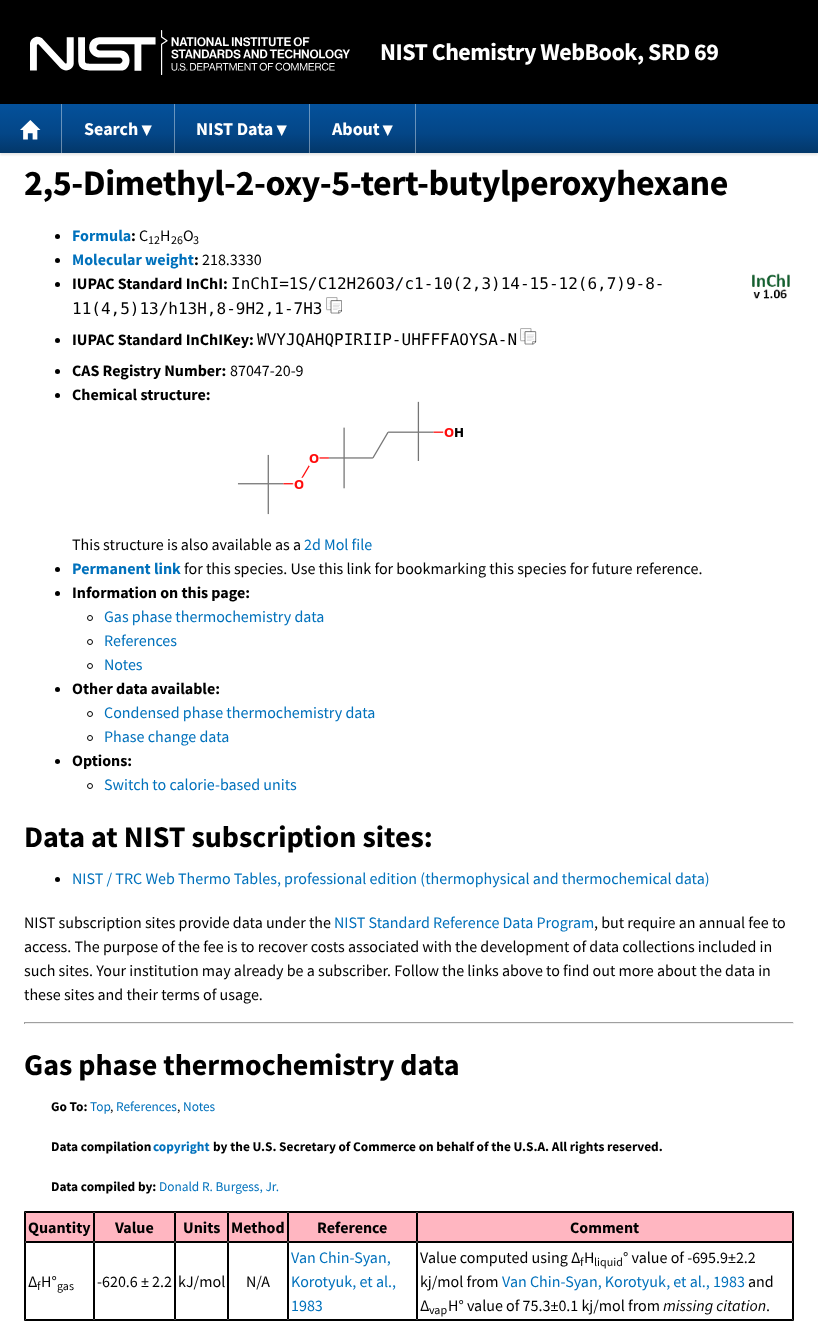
<svg xmlns="http://www.w3.org/2000/svg" width="818" height="1326">
<style>
.a{font:bold 24px Source Sans Pro;letter-spacing:-0.5px;fill:#fff}
.b{font:bold 18px Source Sans Pro;fill:#fff}
.c{font:bold 13px Source Sans Pro;fill:#fff}
.d{font:bold 36px Source Sans Pro;letter-spacing:-0.5px;fill:#000}
.e{font:bold 16px Source Sans Pro;fill:#0071bc}
.f{font:bold 16px Source Sans Pro;fill:#000}
.g{font:16px Source Sans Pro;fill:#000}
.h{font:12px Source Sans Pro;fill:#000}
.i{font:16px DejaVu Sans Mono;fill:#000}
.j{font:16px Source Sans Pro;fill:#0071bc}
.k{font:bold 30px Source Sans Pro;fill:#000}
.l{font:bold 13.35px Source Sans Pro;fill:#000}
.m{font:13.35px Source Sans Pro;fill:#0071bc}
.n{font:13.35px Source Sans Pro;fill:#000}
.o{font:bold 13.35px Source Sans Pro;fill:#0071bc}
.p{font:italic 16px Source Sans Pro;fill:#000}
</style>
<defs>
<linearGradient id="g1" gradientUnits="userSpaceOnUse" x1="409" y1="104" x2="409" y2="153"><stop offset="0" stop-color="#04519b"/><stop offset="0.6" stop-color="#044687"/><stop offset="1" stop-color="#033769"/></linearGradient>
<linearGradient id="g2" gradientUnits="userSpaceOnUse" x1="409" y1="104" x2="409" y2="153"><stop offset="0" stop-color="#6897c3"/><stop offset="0.6" stop-color="#6890b7"/><stop offset="1" stop-color="#6887a5"/></linearGradient>
</defs>
<rect width="100%" height="100%" fill="#fff"/>
<path fill="#0000001a" filter="blur(1px)" d="M0 106h818v49H0z"/>
<path fill="#000" d="M0 0h818v104H0z"/>
<image href="1.png" x="30" y="30" width="320" height="45"/>
<path fill="url(#g1)" d="M0 104h818v49H0z"/>
<path fill="url(#g2)" d="M415 104h1v49H415z"/>
<path fill="url(#g2)" d="M309 104h1v49H309z"/>
<path fill="url(#g2)" d="M174 104h1v49H174z"/>
<path fill="url(#g2)" d="M61 104h1v49H61z"/>
<image href="2.png" x="20" y="120" width="21" height="20"/>
<circle fill="#000" cx="57.5" cy="236.5" r="2.5"/>
<circle fill="#000" cx="57.5" cy="260.5" r="2.5"/>
<circle fill="#000" cx="57.5" cy="284.5" r="2.5"/>
<image href="3.png" x="326" y="297" width="16" height="17"/>
<image href="4.png" x="752" y="273" width="38" height="26"/>
<circle fill="#000" cx="57.5" cy="340.5" r="2.5"/>
<image href="5.png" x="520" y="328" width="17" height="17"/>
<circle fill="#000" cx="57.5" cy="371.5" r="2.5"/>
<circle fill="#000" cx="57.5" cy="395.5" r="2.5"/>
<image href="6.png" x="237" y="401" width="226" height="114"/>
<circle fill="#000" cx="57.5" cy="569.5" r="2.5"/>
<circle fill="#000" cx="57.5" cy="593.5" r="2.5"/>
<circle fill="none" stroke="#000" cx="90" cy="618" r="2.5"/>
<circle fill="none" stroke="#000" cx="90" cy="642" r="2.5"/>
<circle fill="none" stroke="#000" cx="90" cy="666" r="2.5"/>
<circle fill="#000" cx="57.5" cy="689.5" r="2.5"/>
<circle fill="none" stroke="#000" cx="90" cy="714" r="2.5"/>
<circle fill="none" stroke="#000" cx="90" cy="738" r="2.5"/>
<circle fill="#000" cx="57.5" cy="761.5" r="2.5"/>
<circle fill="none" stroke="#000" cx="90" cy="786" r="2.5"/>
<circle fill="#000" cx="57.5" cy="879.5" r="2.5"/>
<path fill="#9f9f9f" d="M24 1022h770v1H24z"/>
<path fill="#eee" d="M793 1022h1v2H793z"/>
<path fill="#eee" d="M24 1023h770v1H24z"/>
<path fill="#9f9f9f" d="M24 1022h1v2H24z"/>
<path fill="none" stroke="#000" d="M24.5 1211.5h769v109H24.5z"/>
<path fill="#ffb6c1" stroke="#000" d="M25.5 1212.5h68v29H25.5z"/>
<path fill="#ffb6c1" stroke="#000" d="M94.5 1212.5h80v29H94.5z"/>
<path fill="#ffb6c1" stroke="#000" d="M175.5 1212.5h52v29H175.5z"/>
<path fill="#ffb6c1" stroke="#000" d="M228.5 1212.5h59v29H228.5z"/>
<path fill="#ffb6c1" stroke="#000" d="M288.5 1212.5h128v29H288.5z"/>
<path fill="#ffb6c1" stroke="#000" d="M417.5 1212.5h375v29H417.5z"/>
<path fill="none" stroke="#000" d="M25.5 1242.5h68v77H25.5z"/>
<path fill="none" stroke="#000" d="M94.5 1242.5h80v77H94.5z"/>
<path fill="none" stroke="#000" d="M175.5 1242.5h52v77H175.5z"/>
<path fill="none" stroke="#000" d="M228.5 1242.5h59v77H228.5z"/>
<path fill="none" stroke="#000" d="M288.5 1242.5h128v77H288.5z"/>
<path fill="none" stroke="#000" d="M417.5 1242.5h375v77H417.5z"/>
<text class="a" x="380" y="60">NIST Chemistry WebBook, SRD 69</text>
<text class="b" x="84" y="135">Search</text>
<text class="c" x="141" y="135">▼</text>
<text class="b" x="196" y="135">NIST Data</text>
<text class="c" x="276" y="135">▼</text>
<text class="b" x="332" y="135">About</text>
<text class="c" x="382" y="135">▼</text>
<text class="d" x="24" y="195">2,5-Dimethyl-2-oxy-5-tert-butylperoxyhexane</text>
<text class="e" x="72" y="241">Formula</text>
<text class="f" x="131" y="241">:</text>
<text class="g" x="139" y="241">C</text>
<text class="h" x="148" y="244">12</text>
<text class="g" x="160" y="241">H</text>
<text class="h" x="171" y="244">26</text>
<text class="g" x="183" y="241">O</text>
<text class="h" x="193" y="244">3</text>
<text class="e" x="72" y="265">Molecular weight</text>
<text class="f" x="194" y="265">:</text>
<text class="g" x="202" y="265">218.3330</text>
<text class="f" x="72" y="289">IUPAC Standard InChI:</text>
<text class="i" x="231" y="289">InChI=1S/C12H26O3/c1-10(2,3)14-15-12(6,7)9-8-</text>
<text class="i" x="72" y="314">11(4,5)13/h13H,8-9H2,1-7H3</text>
<text class="f" x="72" y="345">IUPAC Standard InChIKey:</text>
<text class="i" x="257" y="345">WVYJQAHQPIRIIP-UHFFFAOYSA-N</text>
<text class="f" x="72" y="376">CAS Registry Number:</text>
<text class="g" x="230" y="376">87047-20-9</text>
<text class="f" x="72" y="400">Chemical structure:</text>
<text class="g" x="72" y="550">This structure is also available as a</text>
<text class="j" x="304" y="550">2d Mol file</text>
<text class="e" x="72" y="574">Permanent link</text>
<text class="g" x="184" y="574">for this species. Use this link for bookmarking this species for future reference.</text>
<text class="f" x="72" y="598">Information on this page:</text>
<text class="j" x="104" y="622">Gas phase thermochemistry data</text>
<text class="j" x="104" y="646">References</text>
<text class="j" x="104" y="670">Notes</text>
<text class="f" x="72" y="694">Other data available:</text>
<text class="j" x="104" y="718">Condensed phase thermochemistry data</text>
<text class="j" x="104" y="742">Phase change data</text>
<text class="f" x="72" y="766">Options:</text>
<text class="j" x="104" y="790">Switch to calorie-based units</text>
<text class="k" x="24" y="847">Data at NIST subscription sites:</text>
<text class="j" x="72" y="884">NIST / TRC Web Thermo Tables, professional edition (thermophysical and thermochemical data)</text>
<text class="g" x="24" y="928">NIST subscription sites provide data under the</text>
<text class="j" x="334" y="928">NIST Standard Reference Data Program</text>
<text class="g" x="594" y="928">, but require an annual fee to</text>
<text class="g" x="24" y="952">access. The purpose of the fee is to recover costs associated with the development of data collections included in</text>
<text class="g" x="24" y="976">such sites. Your institution may already be a subscriber. Follow the links above to find out more about the data in</text>
<text class="g" x="24" y="1000">these sites and their terms of usage.</text>
<text class="k" x="24" y="1075">Gas phase thermochemistry data</text>
<text class="l" x="51" y="1111">Go To:</text>
<text class="m" x="90" y="1111">Top</text>
<text class="n" x="110" y="1111">,</text>
<text class="m" x="116" y="1111">References</text>
<text class="n" x="177" y="1111">,</text>
<text class="m" x="183" y="1111">Notes</text>
<text class="l" x="51" y="1151">Data compilation</text>
<text class="o" x="153" y="1151">copyright</text>
<text class="l" x="213" y="1151">by the U.S. Secretary of Commerce on behalf of the U.S.A. All rights reserved.</text>
<text class="l" x="51" y="1191">Data compiled by:</text>
<text class="m" x="159" y="1191">Donald R. Burgess, Jr.</text>
<text class="f" x="28" y="1233">Quantity</text>
<text class="f" x="115" y="1233">Value</text>
<text class="f" x="183" y="1233">Units</text>
<text class="f" x="231" y="1233">Method</text>
<text class="f" x="317" y="1233">Reference</text>
<text class="f" x="570" y="1233">Comment</text>
<text class="g" x="28" y="1287">Δ</text>
<text class="h" x="37" y="1290">f</text>
<text class="g" x="41" y="1287">H°</text>
<text class="h" x="57" y="1290">gas</text>
<text class="g" x="97" y="1287">-620.6 ± 2.2</text>
<text class="g" x="178" y="1287">kJ/mol</text>
<text class="g" x="246" y="1287">N/A</text>
<text class="j" x="291" y="1263">Van Chin-Syan,</text>
<text class="j" x="291" y="1287">Korotyuk, et al.,</text>
<text class="j" x="291" y="1311">1983</text>
<text class="g" x="420" y="1263">Value computed using Δ</text>
<text class="h" x="580" y="1266">f</text>
<text class="g" x="584" y="1263">H</text>
<text class="h" x="594" y="1266">liquid</text>
<text class="g" x="623" y="1263">° value of -695.9±2.2</text>
<text class="g" x="420" y="1287">kj/mol from</text>
<text class="j" x="502" y="1287">Van Chin-Syan, Korotyuk, et al., 1983</text>
<text class="g" x="748" y="1287">and</text>
<text class="g" x="420" y="1311">Δ</text>
<text class="g" x="448" y="1311">H° value of 75.3±0.1 kj/mol from</text>
<text class="p" x="663" y="1311">missing citation</text>
<text class="h" x="429" y="1314">vap</text>
<text class="g" x="766" y="1311">.</text>
</svg>
